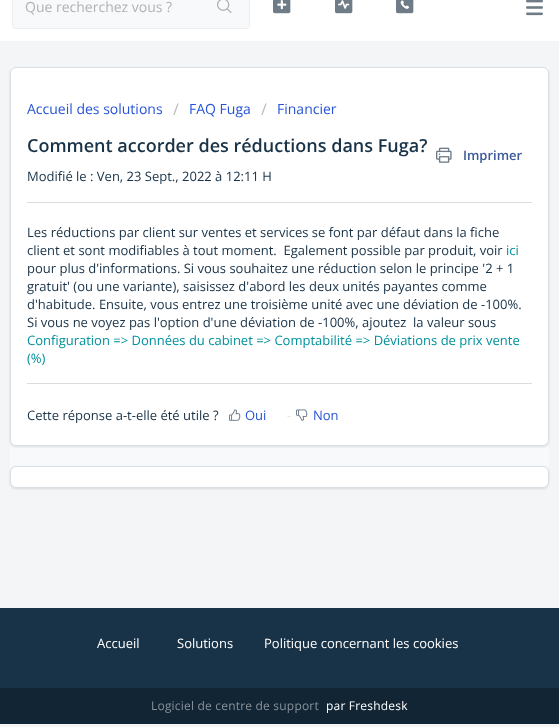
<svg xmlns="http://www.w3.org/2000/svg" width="559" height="727">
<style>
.a{font:14px Open Sans;fill:#b2b2b2}
.b{font:14px Open Sans;fill:#2753d7}
.c{font:16px Open Sans;fill:#bbb}
.d{font:600 18px Open Sans;fill:#183247}
.e{font:600 13px Open Sans;fill:#3b5998}
.f{font:13px Open Sans;fill:#183247}
.g{font:13px Open Sans;fill:#00919c}
.h{font:13px Open Sans;fill:#2753d7}
.i{font:13px Open Sans;fill:#e5e5e5}
.j{font:13px Open Sans;fill:#fff}
.k{font:12px Open Sans;letter-spacing:0.2px;fill:#89929a}
.l{font:12px Open Sans;letter-spacing:0.2px;fill:#fff}
</style>
<rect width="100%" height="100%" fill="#f3f5f7"/>
<path fill="#fff" d="M0 0h559v41H0z"/>
<image href="1.png" x="526" y="0" width="17" height="16"/>
<rect fill="#f8f9fa" stroke="#ebeef0" x="12.5" y="-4.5" width="237" height="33" rx="3.5"/>
<rect fill="#f8f9fa" x="201" y="-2" width="48" height="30" rx="2"/>
<image href="2.png" x="217" y="0" width="15" height="13"/>
<image href="3.png" x="273" y="0" width="18" height="14"/>
<image href="4.png" x="335" y="0" width="18" height="14"/>
<image href="5.png" x="396" y="0" width="18" height="14"/>
<path fill="#f8f9fa" d="M10 67h539v421H10z"/>
<rect fill="#3f3f4426" filter="blur(1px)" x="10" y="68" width="539" height="379" rx="6"/>
<rect fill="#fff" stroke="#dadfe3" x="10.5" y="67.5" width="538" height="378" rx="5.5"/>
<image href="6.png" x="436" y="147" width="16" height="16"/>
<path fill="#dcdcdc" d="M27 202h505v1H27z"/>
<path fill="#dcdcdc" d="M27 383h505v1H27z"/>
<image href="7.png" x="229" y="409" width="12" height="12"/>
<image href="8.png" x="296" y="409" width="12" height="12"/>
<rect fill="#3f3f4426" filter="blur(1px)" x="10" y="467" width="539" height="22" rx="6"/>
<rect fill="#fff" stroke="#dadfe3" x="10.5" y="466.5" width="538" height="21" rx="5.5"/>
<path fill="#183247" d="M0 608h559v80H0z"/>
<path fill="#122534" d="M0 688h559v36H0z"/>
<text class="a" x="25" y="12">Que recherchez vous ?</text>
<text class="b" x="27" y="114">Accueil des solutions</text>
<text class="c" x="173" y="115">/</text>
<text class="b" x="189" y="114">FAQ Fuga</text>
<text class="c" x="261" y="115">/</text>
<text class="b" x="277" y="114">Financier</text>
<text class="d" x="27" y="152">Comment accorder des réductions dans Fuga?</text>
<text class="e" x="463" y="160">Imprimer</text>
<text class="f" x="27" y="181">Modifié le : Ven, 23 Sept., 2022 à 12:11 H</text>
<text class="f" x="27" y="237">Les réductions par client sur ventes et services se font par défaut dans la fiche</text>
<text class="f" xml:space="preserve" x="27" y="255">client et sont modifiables à tout moment.  Egalement possible par produit, voir</text>
<text class="g" x="506" y="255">ici</text>
<text class="f" x="27" y="273">pour plus d'informations. Si vous souhaitez une réduction selon le principe '2 + 1</text>
<text class="f" x="27" y="291">gratuit' (ou une variante), saisissez d'abord les deux unités payantes comme</text>
<text class="f" x="27" y="309">d'habitude. Ensuite, vous entrez une troisième unité avec une déviation de -100%.</text>
<text class="f" xml:space="preserve" x="27" y="327">Si vous ne voyez pas l'option d'une déviation de -100%, ajoutez  la valeur sous</text>
<text class="g" x="27" y="345">Configuration =&gt; Données du cabinet =&gt; Comptabilité =&gt; Déviations de prix vente</text>
<text class="g" x="27" y="363">(%)</text>
<text class="f" x="27" y="420">Cette réponse a-t-elle été utile ?</text>
<text class="h" x="245" y="420">Oui</text>
<text class="i" x="287" y="420">-</text>
<text class="h" x="313" y="420">Non</text>
<text class="j" x="97" y="648">Accueil</text>
<text class="j" x="177" y="648">Solutions</text>
<text class="j" x="264" y="648">Politique concernant les cookies</text>
<text class="k" x="151" y="710">Logiciel de centre de support</text>
<text class="l" x="326" y="710">par Freshdesk</text>
</svg>
